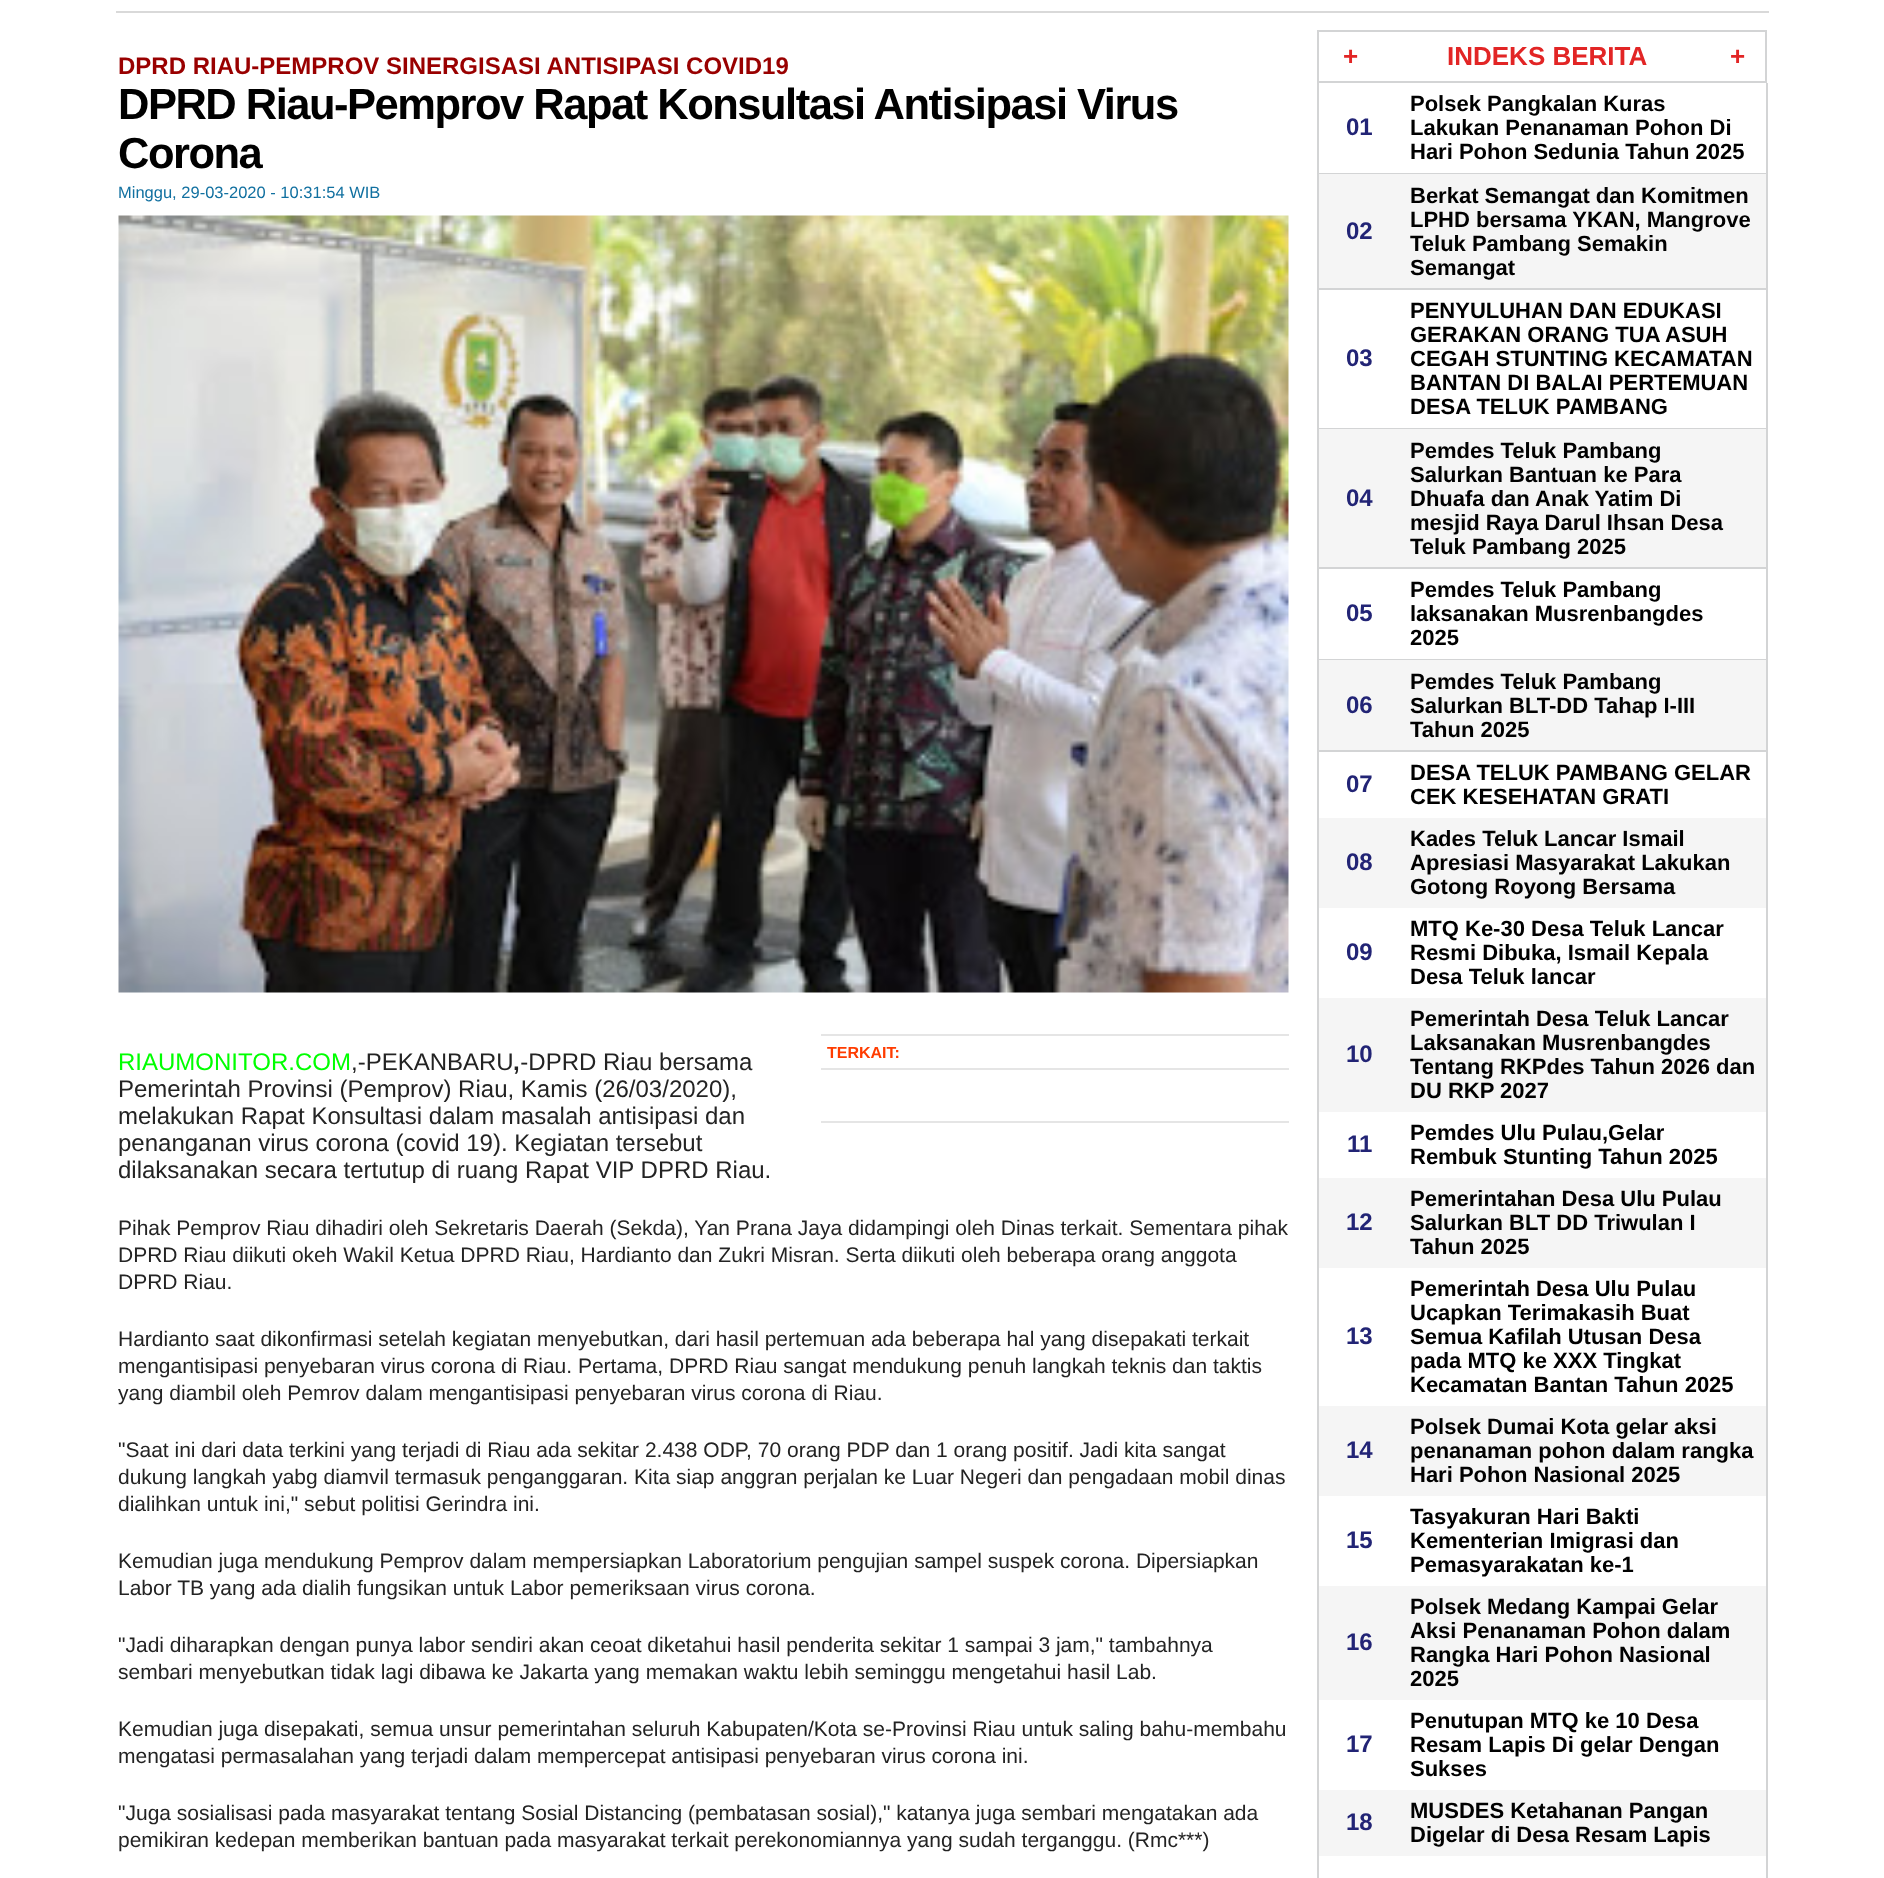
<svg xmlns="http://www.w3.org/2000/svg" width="1884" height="1878">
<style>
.a{font:bold 24px Liberation Sans;fill:#900}
.b{font:bold 43.5px Liberation Sans;letter-spacing:-1.5px;fill:#000}
.c{font:16.5px Liberation Sans;fill:#1170a0}
.d{font:bold 16px Liberation Sans;fill:#ff3c00}
.e{font:24px Liberation Sans;fill:#0f0}
.f{font:24px Liberation Sans;fill:#232323}
.g{font:bold 24px Liberation Sans;fill:#232323}
.h{font:21px Liberation Sans;fill:#232323}
.i{font:bold 26px Liberation Sans;fill:#e22525}
.j{font:bold 24px Liberation Sans;fill:#222475}
.k{font:bold 22px Liberation Sans;fill:#000}
</style>
<rect width="100%" height="100%" fill="#fff"/>
<path fill="#d9d9d9" d="M116 11h1653v2H116z"/>
<image href="1.png" x="118" y="215" width="1171" height="778"/>
<path fill="#e5e5e5" d="M821 1034h468v2H821z"/>
<path fill="#e5e5e5" d="M821 1068h468v2H821z"/>
<path fill="#e5e5e5" d="M821 1121h468v2H821z"/>
<path fill="none" stroke="#d3d4d5" stroke-width="2" d="M1318 31h448v51H1318z"/>
<path fill="#d3d4d5" d="M1766 83h2v1795H1766z"/>
<path fill="#d3d4d5" d="M1317 83h2v1795H1317z"/>
<path fill="#d3d4d5" d="M1319 173h447v1H1319z"/>
<path fill="#f5f5f5" d="M1319 174h447v114H1319z"/>
<path fill="#d3d4d5" d="M1319 288h447v2H1319z"/>
<path fill="#d3d4d5" d="M1319 428h447v1H1319z"/>
<path fill="#f5f5f5" d="M1319 429h447v138H1319z"/>
<path fill="#d3d4d5" d="M1319 567h447v2H1319z"/>
<path fill="#d3d4d5" d="M1319 659h447v1H1319z"/>
<path fill="#f5f5f5" d="M1319 660h447v90H1319z"/>
<path fill="#d3d4d5" d="M1319 750h447v2H1319z"/>
<path fill="#f5f5f5" d="M1319 818h447v90H1319z"/>
<path fill="#f5f5f5" d="M1319 998h447v114H1319z"/>
<path fill="#f5f5f5" d="M1319 1178h447v90H1319z"/>
<path fill="#f5f5f5" d="M1319 1406h447v90H1319z"/>
<path fill="#f5f5f5" d="M1319 1586h447v114H1319z"/>
<path fill="#f5f5f5" d="M1319 1790h447v66H1319z"/>
<text class="a" x="118" y="74">DPRD RIAU-PEMPROV SINERGISASI ANTISIPASI COVID19</text>
<text class="b" x="118" y="119">DPRD Riau-Pemprov Rapat Konsultasi Antisipasi Virus</text>
<text class="b" x="118" y="168">Corona</text>
<text class="c" x="118" y="198">Minggu, 29-03-2020 - 10:31:54 WIB</text>
<text class="d" x="827" y="1058">TERKAIT:</text>
<text class="e" x="118" y="1070">RIAUMONITOR.COM</text>
<text class="f" x="351" y="1070">,-PEKANBARU -DPRD Riau bersama</text>
<text class="g" x="513" y="1070">,</text>
<text class="f" x="118" y="1097">Pemerintah Provinsi (Pemprov) Riau, Kamis (26/03/2020),</text>
<text class="f" x="118" y="1124">melakukan Rapat Konsultasi dalam masalah antisipasi dan</text>
<text class="f" x="118" y="1151">penanganan virus corona (covid 19). Kegiatan tersebut</text>
<text class="f" x="118" y="1178">dilaksanakan secara tertutup di ruang Rapat VIP DPRD Riau.</text>
<text class="h" x="118" y="1235">Pihak Pemprov Riau dihadiri oleh Sekretaris Daerah (Sekda), Yan Prana Jaya didampingi oleh Dinas terkait. Sementara pihak</text>
<text class="h" x="118" y="1262">DPRD Riau diikuti okeh Wakil Ketua DPRD Riau, Hardianto dan Zukri Misran. Serta diikuti oleh beberapa orang anggota</text>
<text class="h" x="118" y="1289">DPRD Riau.</text>
<text class="h" x="118" y="1346">Hardianto saat dikonfirmasi setelah kegiatan menyebutkan, dari hasil pertemuan ada beberapa hal yang disepakati terkait</text>
<text class="h" x="118" y="1373">mengantisipasi penyebaran virus corona di Riau. Pertama, DPRD Riau sangat mendukung penuh langkah teknis dan taktis</text>
<text class="h" x="118" y="1400">yang diambil oleh Pemrov dalam mengantisipasi penyebaran virus corona di Riau.</text>
<text class="h" x="118" y="1457">"Saat ini dari data terkini yang terjadi di Riau ada sekitar 2.438 ODP, 70 orang PDP dan 1 orang positif. Jadi kita sangat</text>
<text class="h" x="118" y="1484">dukung langkah yabg diamvil termasuk penganggaran. Kita siap anggran perjalan ke Luar Negeri dan pengadaan mobil dinas</text>
<text class="h" x="118" y="1511">dialihkan untuk ini," sebut politisi Gerindra ini.</text>
<text class="h" x="118" y="1568">Kemudian juga mendukung Pemprov dalam mempersiapkan Laboratorium pengujian sampel suspek corona. Dipersiapkan</text>
<text class="h" x="118" y="1595">Labor TB yang ada dialih fungsikan untuk Labor pemeriksaan virus corona.</text>
<text class="h" x="118" y="1652">"Jadi diharapkan dengan punya labor sendiri akan ceoat diketahui hasil penderita sekitar 1 sampai 3 jam," tambahnya</text>
<text class="h" x="118" y="1679">sembari menyebutkan tidak lagi dibawa ke Jakarta yang memakan waktu lebih seminggu mengetahui hasil Lab.</text>
<text class="h" x="118" y="1736">Kemudian juga disepakati, semua unsur pemerintahan seluruh Kabupaten/Kota se-Provinsi Riau untuk saling bahu-membahu</text>
<text class="h" x="118" y="1763">mengatasi permasalahan yang terjadi dalam mempercepat antisipasi penyebaran virus corona ini.</text>
<text class="h" x="118" y="1820">"Juga sosialisasi pada masyarakat tentang Sosial Distancing (pembatasan sosial)," katanya juga sembari mengatakan ada</text>
<text class="h" x="118" y="1847">pemikiran kedepan memberikan bantuan pada masyarakat terkait perekonomiannya yang sudah terganggu. (Rmc***)</text>
<text class="i" x="1343" y="65">+</text>
<text class="i" x="1447" y="65">INDEKS BERITA</text>
<text class="i" x="1730" y="65">+</text>
<text class="j" x="1346" y="135">01</text>
<text class="k" x="1410" y="111">Polsek Pangkalan Kuras</text>
<text class="k" x="1410" y="135">Lakukan Penanaman Pohon Di</text>
<text class="k" x="1410" y="159">Hari Pohon Sedunia Tahun 2025</text>
<text class="j" x="1346" y="239">02</text>
<text class="k" x="1410" y="203">Berkat Semangat dan Komitmen</text>
<text class="k" x="1410" y="227">LPHD bersama YKAN, Mangrove</text>
<text class="k" x="1410" y="251">Teluk Pambang Semakin</text>
<text class="k" x="1410" y="275">Semangat</text>
<text class="j" x="1346" y="366">03</text>
<text class="k" x="1410" y="318">PENYULUHAN DAN EDUKASI</text>
<text class="k" x="1410" y="342">GERAKAN ORANG TUA ASUH</text>
<text class="k" x="1410" y="366">CEGAH STUNTING KECAMATAN</text>
<text class="k" x="1410" y="390">BANTAN DI BALAI PERTEMUAN</text>
<text class="k" x="1410" y="414">DESA TELUK PAMBANG</text>
<text class="j" x="1346" y="506">04</text>
<text class="k" x="1410" y="458">Pemdes Teluk Pambang</text>
<text class="k" x="1410" y="482">Salurkan Bantuan ke Para</text>
<text class="k" x="1410" y="506">Dhuafa dan Anak Yatim Di</text>
<text class="k" x="1410" y="530">mesjid Raya Darul Ihsan Desa</text>
<text class="k" x="1410" y="554">Teluk Pambang 2025</text>
<text class="j" x="1346" y="621">05</text>
<text class="k" x="1410" y="597">Pemdes Teluk Pambang</text>
<text class="k" x="1410" y="621">laksanakan Musrenbangdes</text>
<text class="k" x="1410" y="645">2025</text>
<text class="j" x="1346" y="713">06</text>
<text class="k" x="1410" y="689">Pemdes Teluk Pambang</text>
<text class="k" x="1410" y="713">Salurkan BLT-DD Tahap I-III</text>
<text class="k" x="1410" y="737">Tahun 2025</text>
<text class="j" x="1346" y="792">07</text>
<text class="k" x="1410" y="780">DESA TELUK PAMBANG GELAR</text>
<text class="k" x="1410" y="804">CEK KESEHATAN GRATI</text>
<text class="j" x="1346" y="870">08</text>
<text class="k" x="1410" y="846">Kades Teluk Lancar Ismail</text>
<text class="k" x="1410" y="870">Apresiasi Masyarakat Lakukan</text>
<text class="k" x="1410" y="894">Gotong Royong Bersama</text>
<text class="j" x="1346" y="960">09</text>
<text class="k" x="1410" y="936">MTQ Ke-30 Desa Teluk Lancar</text>
<text class="k" x="1410" y="960">Resmi Dibuka, Ismail Kepala</text>
<text class="k" x="1410" y="984">Desa Teluk lancar</text>
<text class="j" x="1346" y="1062">10</text>
<text class="k" x="1410" y="1026">Pemerintah Desa Teluk Lancar</text>
<text class="k" x="1410" y="1050">Laksanakan Musrenbangdes</text>
<text class="k" x="1410" y="1074">Tentang RKPdes Tahun 2026 dan</text>
<text class="k" x="1410" y="1098">DU RKP 2027</text>
<text class="j" x="1347" y="1152">11</text>
<text class="k" x="1410" y="1140">Pemdes Ulu Pulau,Gelar</text>
<text class="k" x="1410" y="1164">Rembuk Stunting Tahun 2025</text>
<text class="j" x="1346" y="1230">12</text>
<text class="k" x="1410" y="1206">Pemerintahan Desa Ulu Pulau</text>
<text class="k" x="1410" y="1230">Salurkan BLT DD Triwulan I</text>
<text class="k" x="1410" y="1254">Tahun 2025</text>
<text class="j" x="1346" y="1344">13</text>
<text class="k" x="1410" y="1296">Pemerintah Desa Ulu Pulau</text>
<text class="k" x="1410" y="1320">Ucapkan Terimakasih Buat</text>
<text class="k" x="1410" y="1344">Semua Kafilah Utusan Desa</text>
<text class="k" x="1410" y="1368">pada MTQ ke XXX Tingkat</text>
<text class="k" x="1410" y="1392">Kecamatan Bantan Tahun 2025</text>
<text class="j" x="1346" y="1458">14</text>
<text class="k" x="1410" y="1434">Polsek Dumai Kota gelar aksi</text>
<text class="k" x="1410" y="1458">penanaman pohon dalam rangka</text>
<text class="k" x="1410" y="1482">Hari Pohon Nasional 2025</text>
<text class="j" x="1346" y="1548">15</text>
<text class="k" x="1410" y="1524">Tasyakuran Hari Bakti</text>
<text class="k" x="1410" y="1548">Kementerian Imigrasi dan</text>
<text class="k" x="1410" y="1572">Pemasyarakatan ke-1</text>
<text class="j" x="1346" y="1650">16</text>
<text class="k" x="1410" y="1614">Polsek Medang Kampai Gelar</text>
<text class="k" x="1410" y="1638">Aksi Penanaman Pohon dalam</text>
<text class="k" x="1410" y="1662">Rangka Hari Pohon Nasional</text>
<text class="k" x="1410" y="1686">2025</text>
<text class="j" x="1346" y="1752">17</text>
<text class="k" x="1410" y="1728">Penutupan MTQ ke 10 Desa</text>
<text class="k" x="1410" y="1752">Resam Lapis Di gelar Dengan</text>
<text class="k" x="1410" y="1776">Sukses</text>
<text class="j" x="1346" y="1830">18</text>
<text class="k" x="1410" y="1818">MUSDES Ketahanan Pangan</text>
<text class="k" x="1410" y="1842">Digelar di Desa Resam Lapis</text>
</svg>
